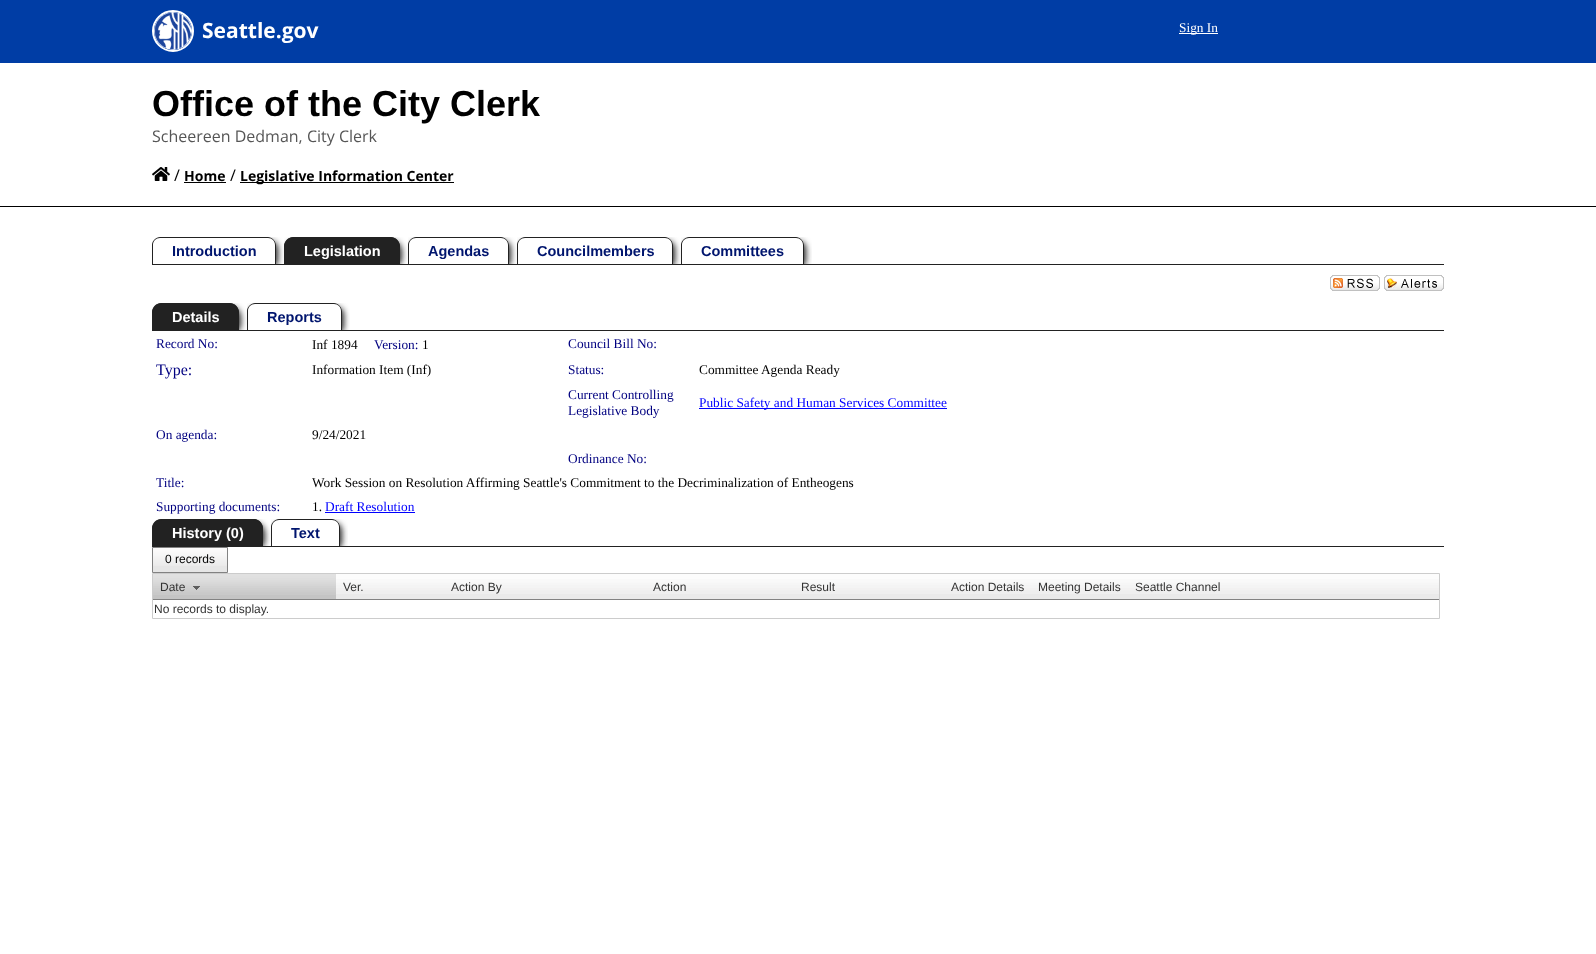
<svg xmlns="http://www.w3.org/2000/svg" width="1596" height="954">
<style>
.a{font:bold 21px Open Sans;fill:#fff}
.b{font:bold 36px Liberation Sans;fill:#000}
.c{font:16px Open Sans;fill:#565656}
.d{font:16px Open Sans;fill:#000}
.e{font:bold 14px Open Sans;fill:#000}
.f{font:13.35px Liberation Serif;fill:#fff}
.g{font:bold 14.5px Liberation Sans;fill:#00156e}
.h{font:bold 14.5px Liberation Sans;fill:#fff}
.i{font:13.35px Liberation Serif;fill:#000080}
.j{font:13.35px Liberation Serif;fill:#000}
.k{font:16px Liberation Serif;fill:#000080}
.l{font:13.35px Liberation Serif;fill:#00f}
.m{font:12px Liberation Sans;fill:#000}
.n{font:12px Liberation Sans;fill:#333}
</style>
<defs>
<clipPath id="clip1"><path d="M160 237h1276c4.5 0 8 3.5 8 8v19h-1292v-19c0-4.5 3.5-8 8-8z"/></clipPath>
<clipPath id="clip2"><path d="M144 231h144v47h-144zm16 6h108c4.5 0 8 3.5 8 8v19h-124v-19c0-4.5 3.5-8 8-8z" clip-rule="evenodd"/></clipPath>
<clipPath id="clip3"><path d="M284 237h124v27H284z"/></clipPath>
<clipPath id="clip4"><path d="M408 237h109v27H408z"/></clipPath>
<clipPath id="clip5"><path d="M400 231h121v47h-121zm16 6h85c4.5 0 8 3.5 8 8v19h-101v-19c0-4.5 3.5-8 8-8z" clip-rule="evenodd"/></clipPath>
<clipPath id="clip6"><path d="M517 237h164v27H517z"/></clipPath>
<clipPath id="clip7"><path d="M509 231h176v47h-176zm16 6h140c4.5 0 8 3.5 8 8v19h-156v-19c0-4.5 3.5-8 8-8z" clip-rule="evenodd"/></clipPath>
<clipPath id="clip8"><path d="M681 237h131v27H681z"/></clipPath>
<clipPath id="clip9"><path d="M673 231h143v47h-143zm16 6h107c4.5 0 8 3.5 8 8v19h-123v-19c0-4.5 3.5-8 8-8z" clip-rule="evenodd"/></clipPath>
<clipPath id="clip10"><path d="M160 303h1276c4.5 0 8 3.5 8 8v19h-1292v-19c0-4.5 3.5-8 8-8z"/></clipPath>
<clipPath id="clip11"><path d="M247 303h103v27H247z"/></clipPath>
<clipPath id="clip12"><path d="M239 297h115v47h-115zm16 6h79c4.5 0 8 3.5 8 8v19h-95v-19c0-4.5 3.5-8 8-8z" clip-rule="evenodd"/></clipPath>
<clipPath id="clip13"><path d="M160 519h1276c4.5 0 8 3.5 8 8v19h-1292v-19c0-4.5 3.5-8 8-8z"/></clipPath>
<clipPath id="clip14"><path d="M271 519h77v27H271z"/></clipPath>
<clipPath id="clip15"><path d="M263 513h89v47h-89zm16 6h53c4.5 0 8 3.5 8 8v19h-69v-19c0-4.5 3.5-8 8-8z" clip-rule="evenodd"/></clipPath>
</defs>
<rect width="100%" height="100%" fill="#fff"/>
<path fill="#000" d="M0 206h1596v1H0z"/>
<path fill="#003da5" d="M0 0h1596v63H0z"/>
<circle fill="none" stroke="#fff" stroke-width="2" cx="173" cy="31" r="20"/>
<image href="1.png" x="154" y="12" width="38" height="38"/>
<image href="2.png" x="152" y="167" width="18" height="14"/>
<path fill="#000" d="M184 182h42v1H184z"/>
<path fill="#000" d="M240 182h214v1H240z"/>
<path fill="#fff" d="M1179 33h39v1H1179z"/>
<path fill="#222" d="M152 264h1292v1H152z"/>
<g clip-path="url(#clip1)">
<g clip-path="url(#clip2)">
<rect fill="#222" filter="blur(3px)" x="154" y="241" width="124" height="27" rx="8"/>
</g>
</g>
<path fill="#222" fill-rule="evenodd" d="M160 237h108c4 0 8 4 8 8v19h-124v-19c0-4 4-8 8-8zm0 1h108c4 0 7 3 7 7v19h-122v-19c0-4 3-7 7-7z"/>
<g clip-path="url(#clip3)">
<rect fill="#222" filter="blur(3px)" x="286" y="241" width="116" height="27" rx="10"/>
</g>
<path fill="#222" d="M294 237h96c5.5 0 10 4.5 10 10v17h-116v-17c0-5.5 4.5-10 10-10z"/>
<path fill="#222" fill-rule="evenodd" d="M294 237h96c6 0 10 4 10 10v17h-116v-17c0-6 4-10 10-10zm0 1h96c5 0 9 4 9 9v17h-114v-17c0-5 4-9 9-9z"/>
<g clip-path="url(#clip4)">
<g clip-path="url(#clip5)">
<rect fill="#222" filter="blur(3px)" x="410" y="241" width="101" height="27" rx="8"/>
</g>
</g>
<path fill="#222" fill-rule="evenodd" d="M416 237h85c4 0 8 4 8 8v19h-101v-19c0-4 4-8 8-8zm0 1h85c4 0 7 3 7 7v19h-99v-19c0-4 3-7 7-7z"/>
<g clip-path="url(#clip6)">
<g clip-path="url(#clip7)">
<rect fill="#222" filter="blur(3px)" x="519" y="241" width="156" height="27" rx="8"/>
</g>
</g>
<path fill="#222" fill-rule="evenodd" d="M525 237h140c4 0 8 4 8 8v19h-156v-19c0-4 4-8 8-8zm0 1h140c4 0 7 3 7 7v19h-154v-19c0-4 3-7 7-7z"/>
<g clip-path="url(#clip8)">
<g clip-path="url(#clip9)">
<rect fill="#222" filter="blur(3px)" x="683" y="241" width="123" height="27" rx="8"/>
</g>
</g>
<path fill="#222" fill-rule="evenodd" d="M689 237h107c4 0 8 4 8 8v19h-123v-19c0-4 4-8 8-8zm0 1h107c4 0 7 3 7 7v19h-121v-19c0-4 3-7 7-7z"/>
<image href="3.png" x="1330" y="275" width="50" height="16"/>
<image href="4.png" x="1384" y="275" width="60" height="16"/>
<path fill="#222" d="M152 330h1292v1H152z"/>
<g clip-path="url(#clip10)">
<rect fill="#222" filter="blur(3px)" x="154" y="307" width="87" height="27" rx="10"/>
</g>
<path fill="#222" d="M162 303h67c5.5 0 10 4.5 10 10v17h-87v-17c0-5.5 4.5-10 10-10z"/>
<path fill="#222" fill-rule="evenodd" d="M162 303h67c6 0 10 4 10 10v17h-87v-17c0-6 4-10 10-10zm0 1h67c5 0 9 4 9 9v17h-85v-17c0-5 4-9 9-9z"/>
<g clip-path="url(#clip11)">
<g clip-path="url(#clip12)">
<rect fill="#222" filter="blur(3px)" x="249" y="307" width="95" height="27" rx="8"/>
</g>
</g>
<path fill="#222" fill-rule="evenodd" d="M255 303h79c4 0 8 4 8 8v19h-95v-19c0-4 4-8 8-8zm0 1h79c4 0 7 3 7 7v19h-93v-19c0-4 3-7 7-7z"/>
<path fill="#00f" d="M699 408h248v1H699z"/>
<path fill="#00f" d="M325 512h90v1H325z"/>
<path fill="#222" d="M152 546h1292v1H152z"/>
<g clip-path="url(#clip13)">
<rect fill="#222" filter="blur(3px)" x="154" y="523" width="111" height="27" rx="10"/>
</g>
<path fill="#222" d="M162 519h91c5.5 0 10 4.5 10 10v17h-111v-17c0-5.5 4.5-10 10-10z"/>
<path fill="#222" fill-rule="evenodd" d="M162 519h91c6 0 10 4 10 10v17h-111v-17c0-6 4-10 10-10zm0 1h91c5 0 9 4 9 9v17h-109v-17c0-5 4-9 9-9z"/>
<g clip-path="url(#clip14)">
<g clip-path="url(#clip15)">
<rect fill="#222" filter="blur(3px)" x="273" y="523" width="69" height="27" rx="8"/>
</g>
</g>
<path fill="#222" fill-rule="evenodd" d="M279 519h53c4 0 8 4 8 8v19h-69v-19c0-4 4-8 8-8zm0 1h53c4 0 7 3 7 7v19h-67v-19c0-4 3-7 7-7z"/>
<path fill="#e6e6e6" d="M153 566h74v6H153z"/>
<image href="5.png" x="153" y="548" width="74" height="18"/>
<path fill="none" stroke="#828282" d="M152.5 547.5h75v25H152.5z"/>
<path fill="none" stroke="#ccc" d="M152.5 573.5h1287v45H152.5z"/>
<path fill="#c4c4c4" d="M153 595h183v4H153z"/>
<image href="6.png" x="153" y="574" width="183" height="21"/>
<path fill="#828282" d="M153 599h1286v1H153z"/>
<image href="7.png" x="193" y="586" width="7" height="4"/>
<path fill="#eaeaea" d="M336 594h1103v5H336z"/>
<image href="8.png" x="336" y="574" width="108" height="20"/>
<image href="9.png" x="444" y="574" width="202" height="20"/>
<image href="10.png" x="646" y="574" width="148" height="20"/>
<image href="11.png" x="794" y="574" width="150" height="20"/>
<image href="12.png" x="944" y="574" width="87" height="20"/>
<image href="13.png" x="1031" y="574" width="97" height="20"/>
<image href="14.png" x="1128" y="574" width="311" height="20"/>
<text class="a" x="202" y="38">Seattle.gov</text>
<text class="b" x="152" y="116">Office of the City Clerk</text>
<text class="c" x="152" y="142">Scheereen Dedman, City Clerk</text>
<text class="d" x="174" y="181">/</text>
<text class="e" x="184" y="181">Home</text>
<text class="d" x="230" y="181">/</text>
<text class="e" x="240" y="181">Legislative Information Center</text>
<text class="f" x="1179" y="32">Sign In</text>
<text class="g" x="172" y="256">Introduction</text>
<text class="h" x="304" y="256">Legislation</text>
<text class="g" x="428" y="256">Agendas</text>
<text class="g" x="537" y="256">Councilmembers</text>
<text class="g" x="701" y="256">Committees</text>
<text class="h" x="172" y="322">Details</text>
<text class="g" x="267" y="322">Reports</text>
<text class="i" x="156" y="348">Record No:</text>
<text class="j" x="312" y="349">Inf 1894</text>
<text class="i" x="374" y="349">Version:</text>
<text class="j" x="422" y="349">1</text>
<text class="i" x="568" y="348">Council Bill No:</text>
<text class="k" x="156" y="375">Type:</text>
<text class="j" x="312" y="374">Information Item (Inf)</text>
<text class="i" x="568" y="374">Status:</text>
<text class="j" x="699" y="374">Committee Agenda Ready</text>
<text class="i" x="568" y="399">Current Controlling</text>
<text class="i" x="568" y="415">Legislative Body</text>
<text class="l" x="699" y="407">Public Safety and Human Services Committee</text>
<text class="i" x="156" y="439">On agenda:</text>
<text class="j" x="312" y="439">9/24/2021</text>
<text class="i" x="568" y="463">Ordinance No:</text>
<text class="i" x="156" y="487">Title:</text>
<text class="j" x="312" y="487">Work Session on Resolution Affirming Seattle's Commitment to the Decriminalization of Entheogens</text>
<text class="i" x="156" y="511">Supporting documents:</text>
<text class="j" x="312" y="511">1.</text>
<text class="l" x="325" y="511">Draft Resolution</text>
<text class="h" x="172" y="538">History (0)</text>
<text class="g" x="291" y="538">Text</text>
<text class="m" x="165" y="563">0 records</text>
<text class="n" x="160" y="591">Date</text>
<text class="n" x="343" y="591">Ver.</text>
<text class="n" x="451" y="591">Action By</text>
<text class="n" x="653" y="591">Action</text>
<text class="n" x="801" y="591">Result</text>
<text class="n" x="951" y="591">Action Details</text>
<text class="n" x="1038" y="591">Meeting Details</text>
<text class="n" x="1135" y="591">Seattle Channel</text>
<text class="n" x="154" y="613">No records to display.</text>
</svg>
